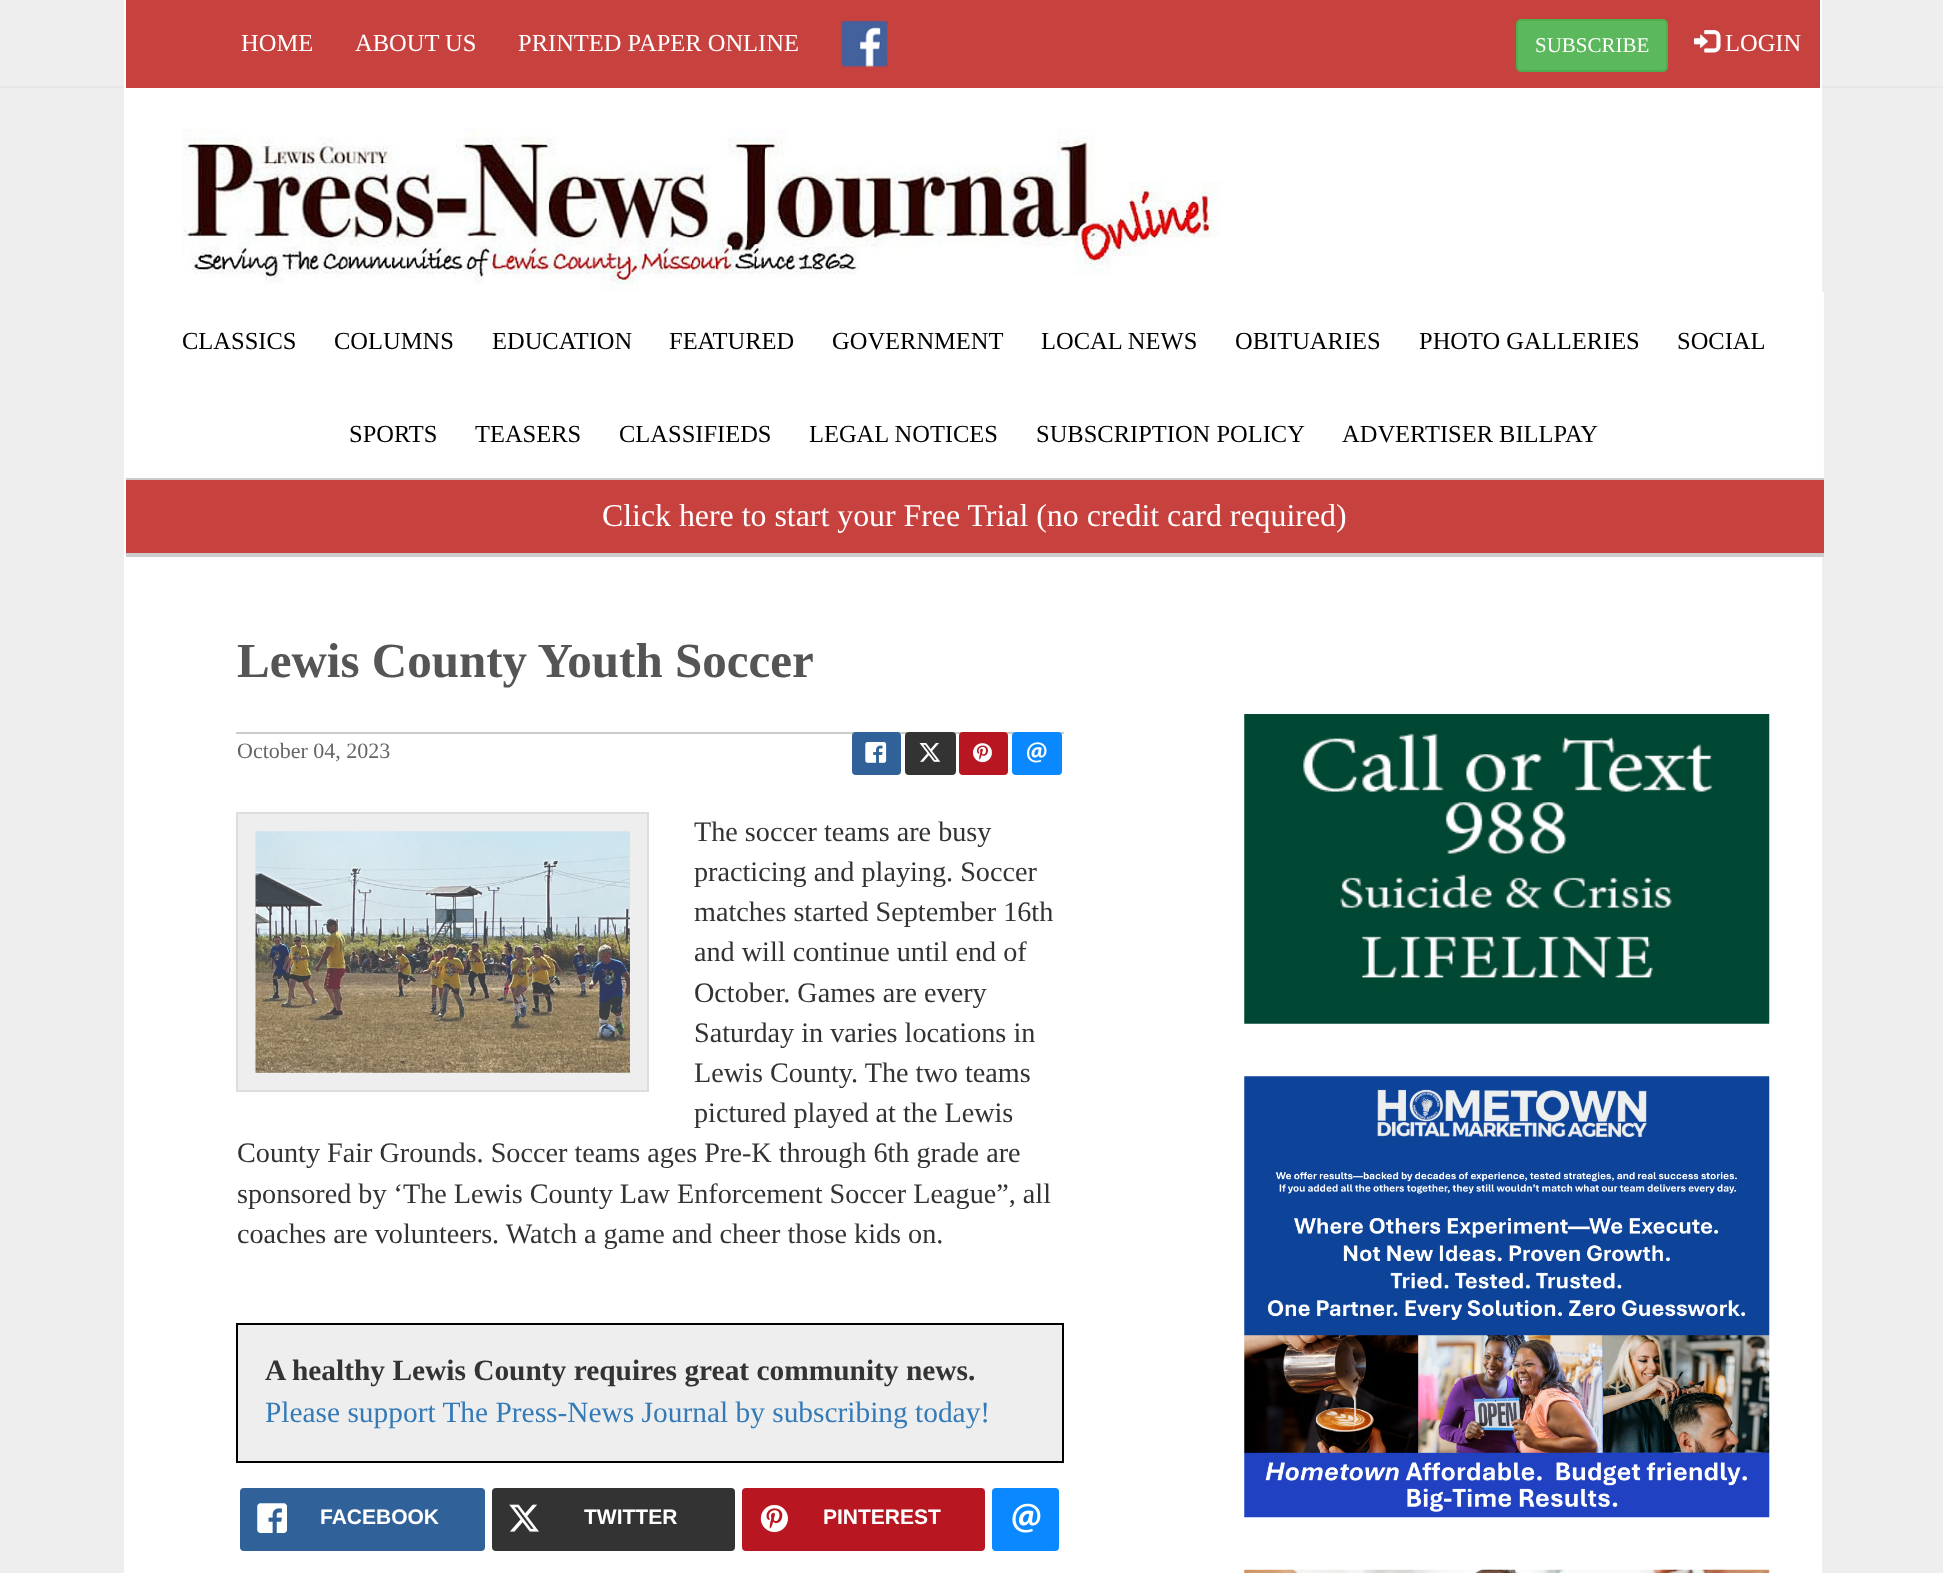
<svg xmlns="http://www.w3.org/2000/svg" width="1943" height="1573">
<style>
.a{font:24.5px Liberation Serif;fill:#fff}
.b{font:21px Liberation Serif;fill:#fff}
.c{font:24.5px Liberation Serif;fill:#000}
.d{font:31.85px Liberation Serif;fill:#fff}
.e{font:bold 49px Liberation Serif;fill:#555}
.f{font:22px Liberation Serif;fill:#666}
.g{font:28.2px Liberation Serif;fill:#333}
.h{font:bold 29.4px Liberation Serif;fill:#333}
.i{font:29.4px Liberation Serif;fill:#337ab7}
.j{font:bold 21px Liberation Sans;fill:#fff}
</style>
<rect width="100%" height="100%" fill="#eee"/>
<path fill="#fefefe" d="M1822 292h2v186H1822z"/>
<path fill="#fff" d="M1820 88h2v1485H1820z"/>
<path fill="#fff" d="M124 88h1696v1485H124z"/>
<path fill="#e7e7e7" d="M0 86h1943v2H0z"/>
<path fill="#c7423f" d="M126 0h1694v88H126z"/>
<path fill="#fff" d="M1820 0h2v88H1820z"/>
<path fill="#fff" d="M124 0h2v88H124z"/>
<image href="1.png" x="841" y="20" width="47" height="48"/>
<rect fill="#5cb85c" stroke="#4cae4c" stroke-width="2" x="1517" y="20" width="150" height="51" rx="4"/>
<image href="2.png" x="1694" y="30" width="27" height="23"/>
<image href="3.png" x="182" y="128" width="1038" height="164"/>
<path fill="#ccc" d="M126 553h1698v4H126z"/>
<path fill="#c7423f" d="M126 480h1698v73H126z"/>
<path fill="#ccc" d="M126 478h1698v2H126z"/>
<path fill="#ccc" d="M236 732h828v2H236z"/>
<rect fill="#306199" x="852" y="732" width="49" height="43" rx="4"/>
<image href="4.png" x="865" y="742" width="22" height="21"/>
<rect fill="#333" x="905" y="732" width="51" height="43" rx="4"/>
<image href="5.png" x="919" y="743" width="22" height="19"/>
<rect fill="#b81621" x="959" y="732" width="49" height="43" rx="4"/>
<image href="6.png" x="973" y="743" width="19" height="20"/>
<rect fill="#0a88ff" x="1012" y="732" width="50" height="43" rx="4"/>
<image href="7.png" x="1026" y="742" width="21" height="21"/>
<path fill="#eee" stroke="#ddd" stroke-width="2" d="M237 813h411v278H237z"/>
<image href="8.png" x="255" y="831" width="375" height="242"/>
<path fill="#eee" stroke="#000" stroke-width="2" d="M237 1324h826v138H237z"/>
<rect fill="#306199" x="240" y="1488" width="245" height="63" rx="4"/>
<image href="9.png" x="257" y="1503" width="30" height="30"/>
<rect fill="#333" x="492" y="1488" width="243" height="63" rx="4"/>
<image href="10.png" x="509" y="1504" width="30" height="28"/>
<rect fill="#b81621" x="742" y="1488" width="243" height="63" rx="4"/>
<image href="11.png" x="760" y="1504" width="28" height="29"/>
<rect fill="#0a88ff" x="992" y="1488" width="67" height="63" rx="4"/>
<image href="12.png" x="1012" y="1503" width="29" height="30"/>
<image href="13.png" x="1244" y="714" width="526" height="310"/>
<image href="14.png" x="1244" y="1076" width="526" height="442"/>
<image href="15.png" x="1244" y="1569" width="526" height="4"/>
<text class="a" x="241" y="51">HOME</text>
<text class="a" x="355" y="51">ABOUT US</text>
<text class="a" x="518" y="51">PRINTED PAPER ONLINE</text>
<text class="b" x="1535" y="52">SUBSCRIBE</text>
<text class="a" x="1725" y="51">LOGIN</text>
<text class="c" x="182" y="349">CLASSICS</text>
<text class="c" x="334" y="349">COLUMNS</text>
<text class="c" x="492" y="349">EDUCATION</text>
<text class="c" x="669" y="349">FEATURED</text>
<text class="c" x="832" y="349">GOVERNMENT</text>
<text class="c" x="1041" y="349">LOCAL NEWS</text>
<text class="c" x="1235" y="349">OBITUARIES</text>
<text class="c" x="1419" y="349">PHOTO GALLERIES</text>
<text class="c" x="1677" y="349">SOCIAL</text>
<text class="c" x="349" y="442">SPORTS</text>
<text class="c" x="475" y="442">TEASERS</text>
<text class="c" x="619" y="442">CLASSIFIEDS</text>
<text class="c" x="809" y="442">LEGAL NOTICES</text>
<text class="c" x="1036" y="442">SUBSCRIPTION POLICY</text>
<text class="c" x="1342" y="442">ADVERTISER BILLPAY</text>
<text class="d" x="602" y="526">Click here to start your Free Trial (no credit card required)</text>
<text class="e" x="237" y="677">Lewis County Youth Soccer</text>
<text class="f" x="237" y="758">October 04, 2023</text>
<text class="g" x="694" y="841">The soccer teams are busy</text>
<text class="g" x="694" y="881">practicing and playing. Soccer</text>
<text class="g" x="694" y="921">matches started September 16th</text>
<text class="g" x="694" y="961">and will continue until end of</text>
<text class="g" x="694" y="1002">October. Games are every</text>
<text class="g" x="694" y="1042">Saturday in varies locations in</text>
<text class="g" x="694" y="1082">Lewis County. The two teams</text>
<text class="g" x="694" y="1122">pictured played at the Lewis</text>
<text class="g" x="237" y="1162">County Fair Grounds. Soccer teams ages Pre-K through 6th grade are</text>
<text class="g" x="237" y="1203">sponsored by ‘The Lewis County Law Enforcement Soccer League”, all</text>
<text class="g" x="237" y="1243">coaches are volunteers. Watch a game and cheer those kids on.</text>
<text class="h" x="265" y="1380">A healthy Lewis County requires great community news.</text>
<text class="i" x="265" y="1422">Please support The Press-News Journal by subscribing today!</text>
<text class="j" x="320" y="1524">FACEBOOK</text>
<text class="j" x="584" y="1524">TWITTER</text>
<text class="j" x="823" y="1524">PINTEREST</text>
</svg>
